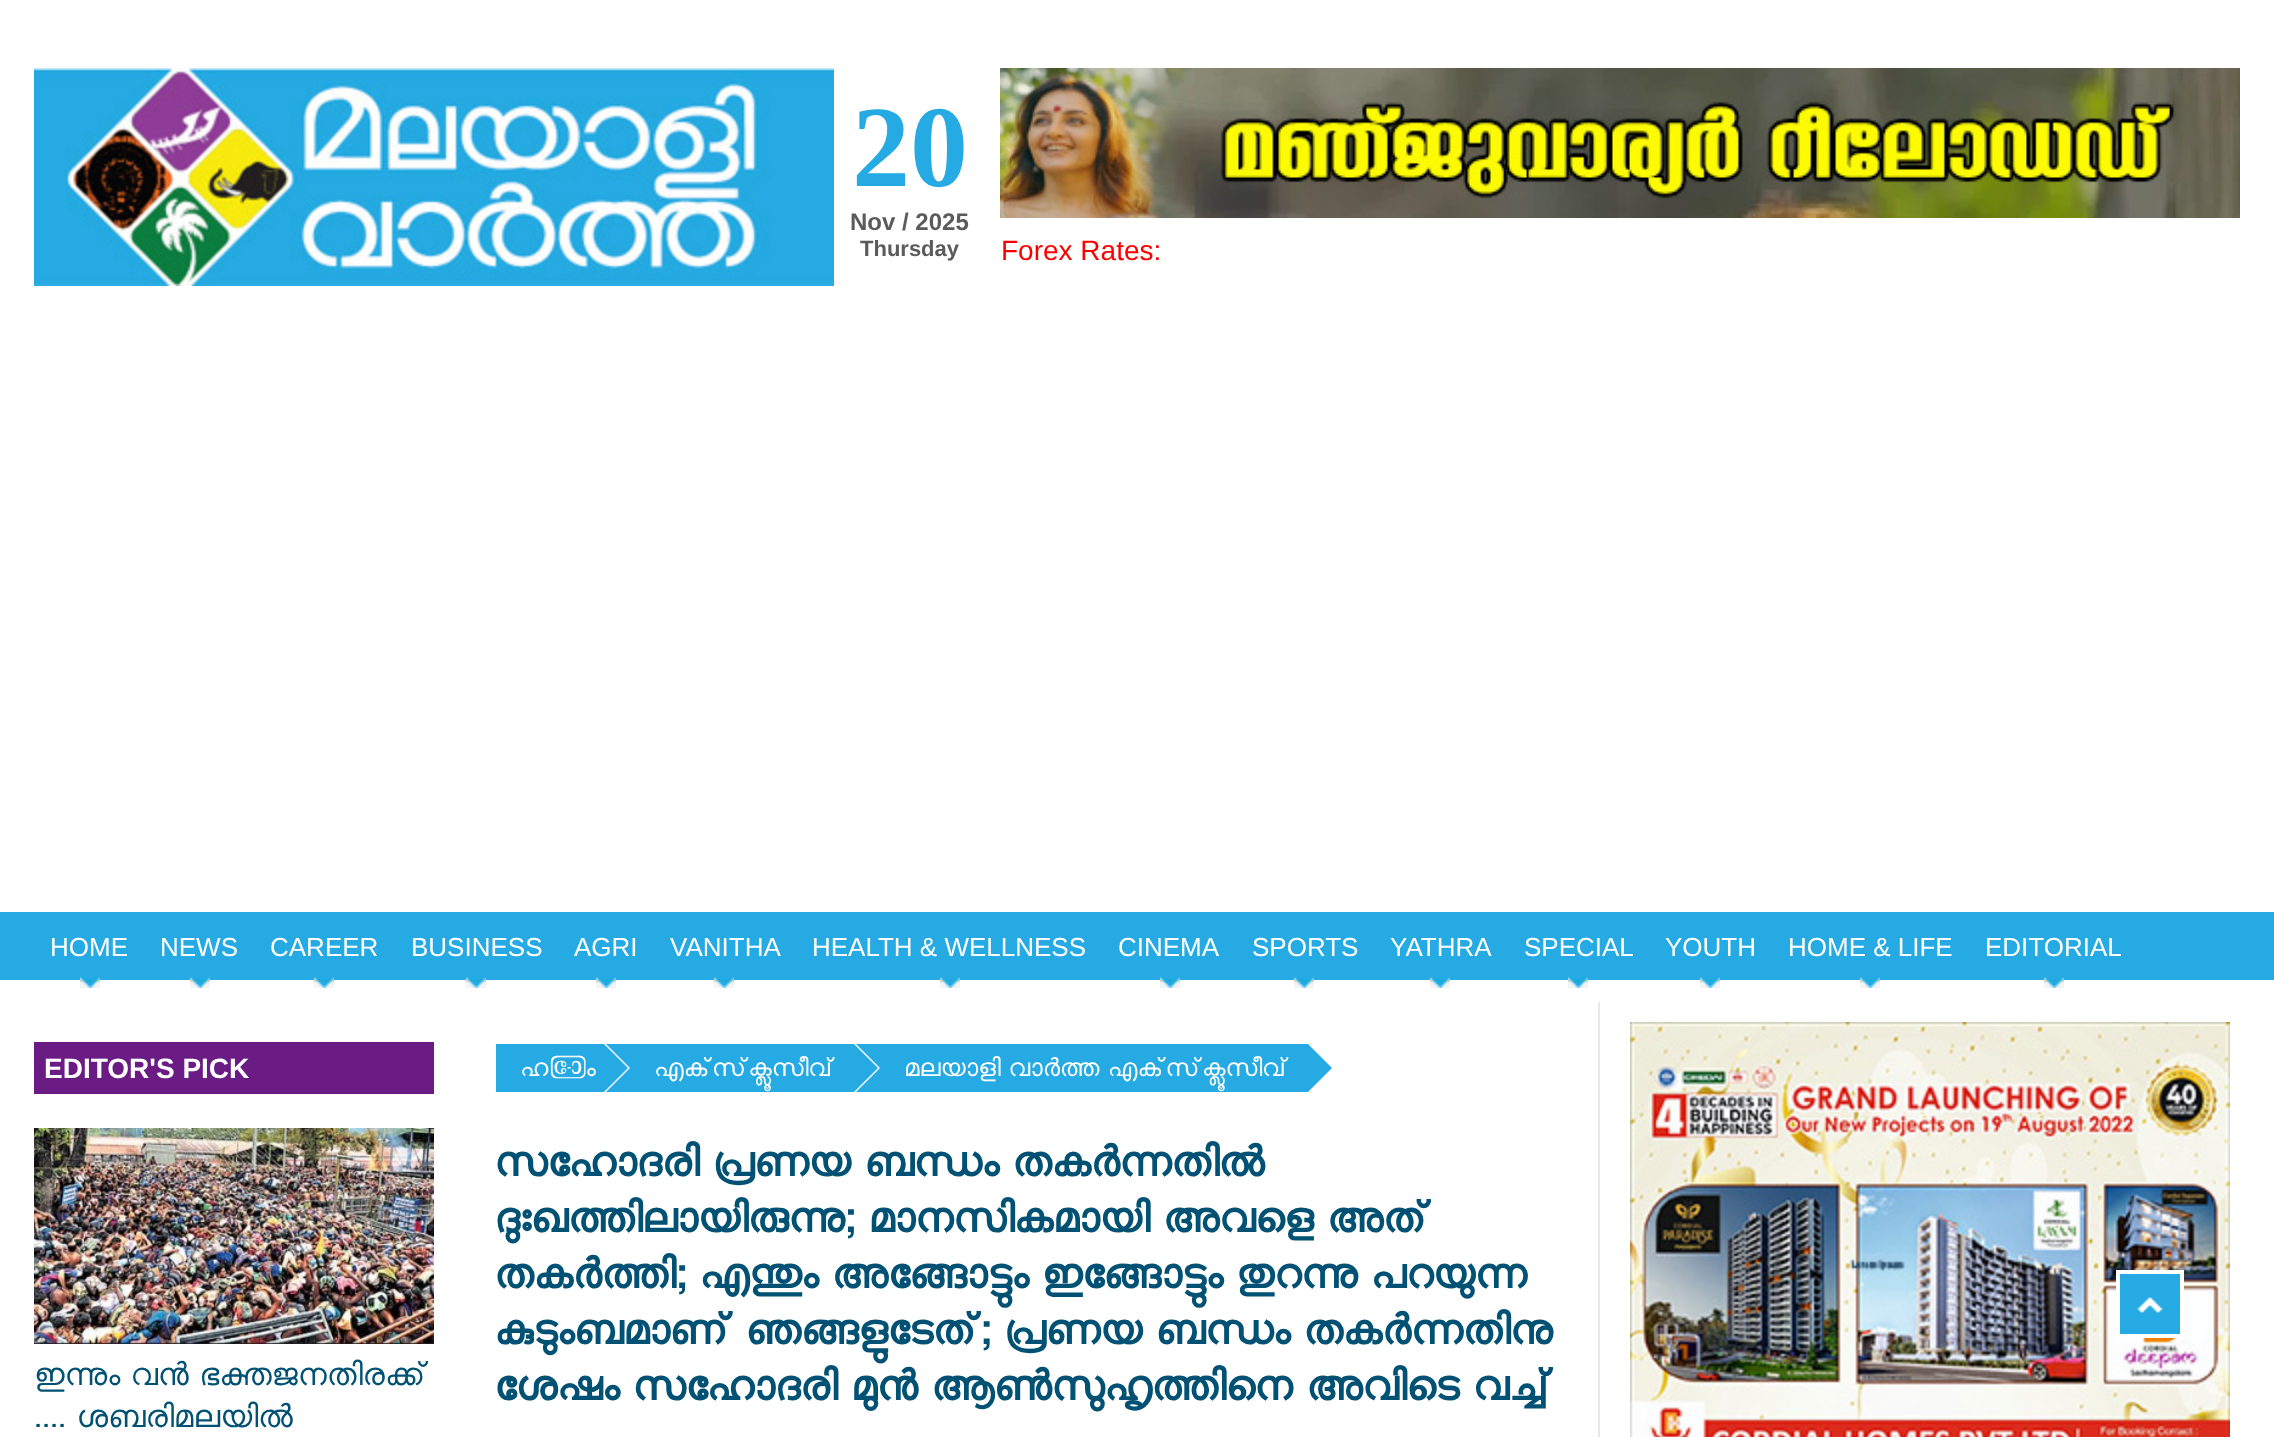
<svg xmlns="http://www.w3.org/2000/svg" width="2274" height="1437">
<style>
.a{font:bold 116px Liberation Serif;fill:#25aae3}
.b{font:bold 24px Liberation Sans;fill:#5c5b5b}
.c{font:bold 22px Liberation Sans;fill:#5c5b5b}
.d{font:28px Liberation Sans;fill:#f00}
.e{font:26px Liberation Sans;fill:#fff}
.f{font:bold 28px Liberation Sans;fill:#fff}
.g{font:38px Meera;fill:#005173}
.h{font:30px Meera;fill:#fff}
.i{font:bold 50px Meera;fill:#005173}
</style>
<rect width="100%" height="100%" fill="#fff"/>
<image href="1.png" x="34" y="68" width="800" height="218"/>
<image href="2.png" x="1000" y="68" width="1240" height="150"/>
<path fill="#25aae3" d="M0 912h2274v68H0z"/>
<image href="3.png" x="80" y="977" width="20" height="11"/>
<image href="3.png" x="190" y="977" width="20" height="11"/>
<image href="3.png" x="314" y="977" width="20" height="11"/>
<image href="3.png" x="466" y="977" width="20" height="11"/>
<image href="3.png" x="596" y="977" width="20" height="11"/>
<image href="3.png" x="714" y="977" width="20" height="11"/>
<image href="3.png" x="940" y="977" width="20" height="11"/>
<image href="3.png" x="1160" y="977" width="20" height="11"/>
<image href="3.png" x="1294" y="977" width="20" height="11"/>
<image href="3.png" x="1430" y="977" width="20" height="11"/>
<image href="3.png" x="1568" y="977" width="20" height="11"/>
<image href="3.png" x="1700" y="977" width="20" height="11"/>
<image href="3.png" x="1860" y="977" width="20" height="11"/>
<image href="3.png" x="2044" y="977" width="20" height="11"/>
<path fill="#e8e8e8" d="M1598 1002h2v435H1598z"/>
<path fill="#6a1c84" d="M34 1042h400v52H34z"/>
<image href="4.png" x="34" y="1128" width="400" height="216"/>
<path fill="#25aae3" d="M496 1044h108v48H496z"/>
<path fill="#25aae3" d="M604 1092v-48l24 24z"/>
<path fill="#25aae3" d="M654 1044h200v48H654z"/>
<path fill="#25aae3" d="M606 1044h48l-24 24z"/>
<path fill="#25aae3" d="M630 1044h24v48H630z"/>
<path fill="#25aae3" d="M654 1092h-48l24-24z"/>
<path fill="#25aae3" d="M854 1092v-48l24 24z"/>
<path fill="#25aae3" d="M904 1044h404v48H904z"/>
<path fill="#25aae3" d="M856 1044h48l-24 24z"/>
<path fill="#25aae3" d="M880 1044h24v48H880z"/>
<path fill="#25aae3" d="M904 1092h-48l24-24z"/>
<path fill="#25aae3" d="M1308 1092v-48l24 24z"/>
<image href="5.png" x="1630" y="1022" width="600" height="415"/>
<path fill="#25aae3" d="M2120 1274h60v60H2120z"/>
<image href="6.png" x="2137" y="1297" width="26" height="16"/>
<path fill="none" stroke="#fff" stroke-width="4" d="M2118 1272h64v64H2118z"/>
<text class="a" x="852" y="186">20</text>
<text class="b" x="850" y="230">Nov / 2025</text>
<text class="c" x="860" y="256">Thursday</text>
<text class="d" x="1001" y="260">Forex Rates:</text>
<text class="e" x="50" y="956">HOME</text>
<text class="e" x="160" y="956">NEWS</text>
<text class="e" x="270" y="956">CAREER</text>
<text class="e" x="411" y="956">BUSINESS</text>
<text class="e" x="574" y="956">AGRI</text>
<text class="e" x="670" y="956">VANITHA</text>
<text class="e" x="812" y="956">HEALTH &amp; WELLNESS</text>
<text class="e" x="1118" y="956">CINEMA</text>
<text class="e" x="1252" y="956">SPORTS</text>
<text class="e" x="1390" y="956">YATHRA</text>
<text class="e" x="1524" y="956">SPECIAL</text>
<text class="e" x="1665" y="956">YOUTH</text>
<text class="e" x="1788" y="956">HOME &amp; LIFE</text>
<text class="e" x="1985" y="956">EDITORIAL</text>
<text class="f" x="44" y="1078">EDITOR'S PICK</text>
<text class="g" x="34" y="1385">ഇന്നും വൻ ഭക്തജനതിരക്ക്</text>
<text class="g" x="34" y="1427">.... ശബരിമലയിൽ</text>
<text class="h" x="520" y="1076">ഹോം</text>
<text class="h" x="654" y="1076">എക്‌സ്‌ക്ലൂസീവ്</text>
<text class="h" x="904" y="1076">മലയാളി വാര്‍ത്ത എക്‌സ്‌ക്ലൂസീവ്</text>
<text class="i" x="494" y="1176">സഹോദരി പ്രണയ ബന്ധം തകർന്നതിൽ</text>
<text class="i" x="494" y="1232">ദുഃഖത്തിലായിരുന്നു; മാനസികമായി അവളെ അത്</text>
<text class="i" x="494" y="1288">തകർത്തി; എന്തും അങ്ങോട്ടും ഇങ്ങോട്ടും തുറന്നു പറയുന്ന</text>
<text class="i" x="494" y="1344">കുടുംബമാണ് ഞങ്ങളുടേത്; പ്രണയ ബന്ധം തകർന്നതിനു</text>
<text class="i" x="494" y="1400">ശേഷം സഹോദരി മുന്‍ ആണ്‍സുഹൃത്തിനെ അവിടെ വച്ച്</text>
</svg>
